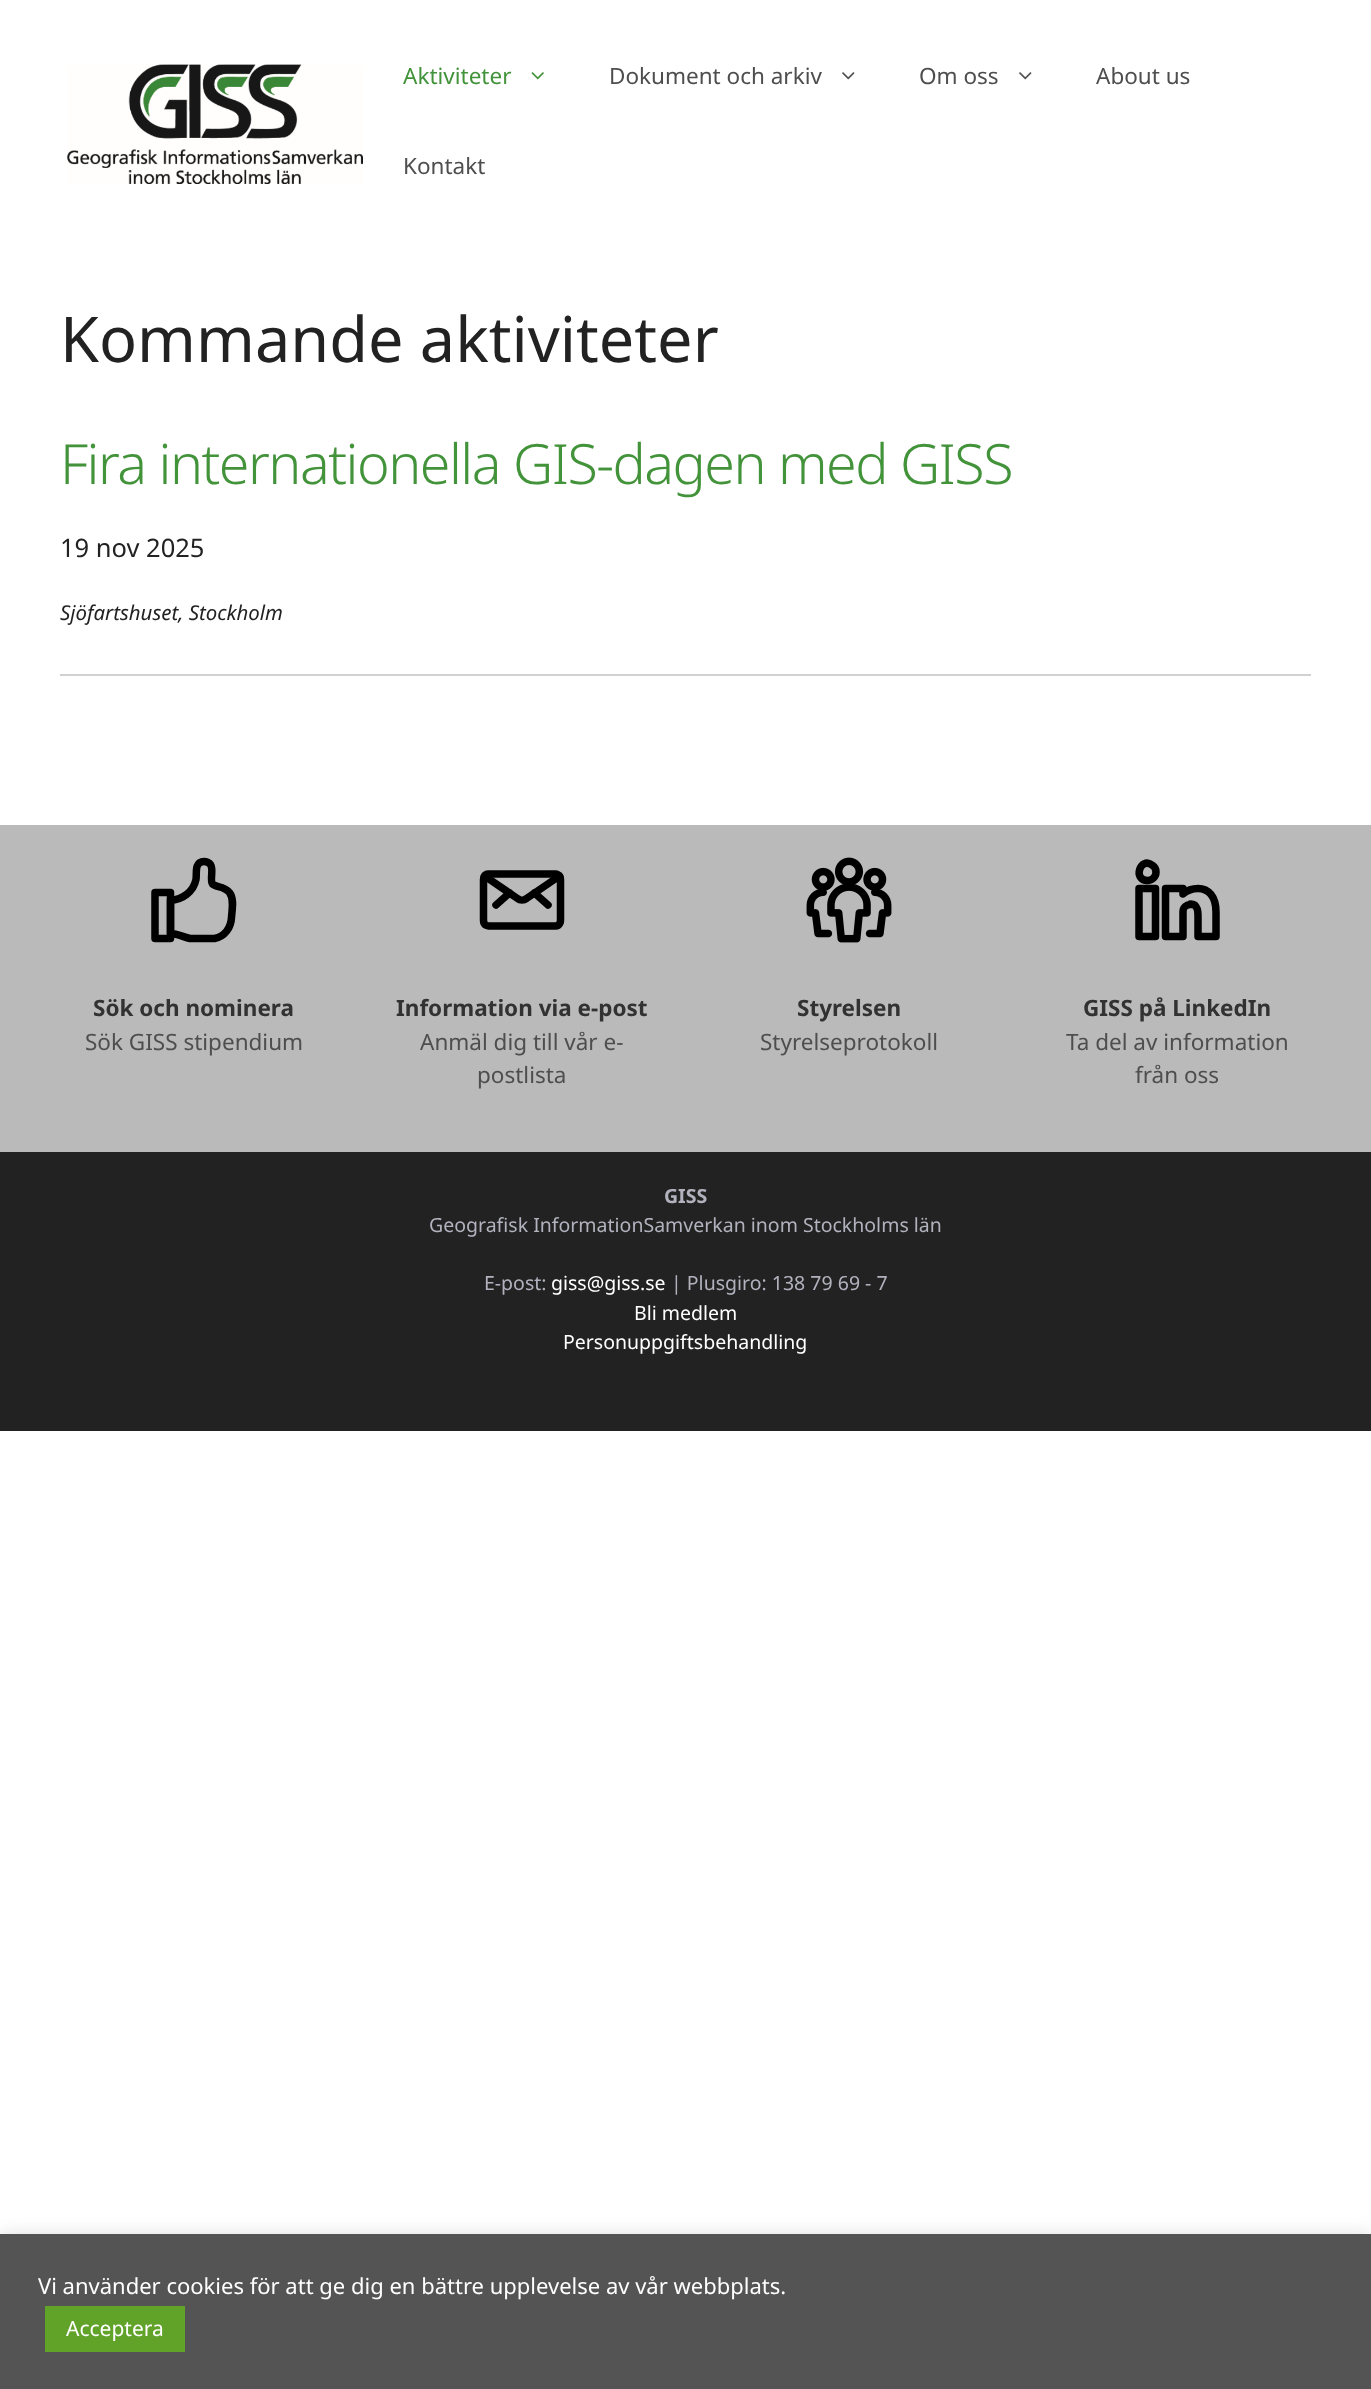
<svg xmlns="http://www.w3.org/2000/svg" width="1371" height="2389">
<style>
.a{font:22.5px Noto Sans;fill:#43933b}
.b{font:22.5px Noto Sans;fill:#4e4e4e}
.c{font:63px Noto Sans;fill:#222}
.d{font:300 55.5px Noto Sans;letter-spacing:-1.5px;fill:#43933b}
.e{font:25.5px Noto Sans;fill:#222}
.f{font:italic 20.4px Noto Sans;fill:#222}
.g{font:bold 22.5px Noto Sans;fill:#323232}
.h{font:bold 19.5px Noto Sans;fill:#b2b2be}
.i{font:19.5px Noto Sans;fill:#b2b2be}
.j{font:19.5px Noto Sans;fill:#fff}
.k{font:22px Noto Sans;fill:#fff}
.l{font:21px Noto Sans;fill:#fff}
</style>
<rect width="100%" height="100%" fill="#fff"/>
<image href="1.png" x="67" y="64" width="296" height="120"/>
<image href="2.png" x="531" y="72" width="13" height="8"/>
<image href="3.png" x="842" y="72" width="13" height="8"/>
<image href="3.png" x="1019" y="72" width="13" height="8"/>
<path fill="#d1d1d1" d="M60 674h1251v2H60z"/>
<path fill="#bababa" d="M0 825h1371v327H0z"/>
<path fill="none" stroke="#000" stroke-width="7.5" stroke-linecap="round" stroke-linejoin="round" d="M170.5 933.5c6.5 0 13 3.5 19.5 5h24.5c10.5-2 16.5-11 17-21c.5-8 3-18-2-25c-5.5-7-14-5-17-8.5c-3-4.5 1.5-14-2-19.5c-1.5-2-4-3-6.5-3c-10 0-7 12-8 18c-2.5 12-13.5 20.5-25.5 20.5z"/>
<path fill="none" stroke="#000" stroke-width="7.5" stroke-linecap="round" stroke-linejoin="round" d="M155 892.5h15.5v46h-15.5z"/>
<path fill="none" stroke="#000" stroke-width="7.5" stroke-linecap="round" stroke-linejoin="round" d="M488.5 874h67c0 0 5 0 5 5.5v41c0 0 0 5.5-5 5.5h-67c0 0-5 0-5-5.5v-41c0 0 0-5.5 5-5.5"/>
<path fill="none" stroke="#000" stroke-width="7.5" stroke-linecap="round" stroke-linejoin="round" d="M534.5 893l13.5 12m-38.5-12l-13.5 12"/>
<path fill="none" stroke="#000" stroke-width="7.5" stroke-linecap="round" stroke-linejoin="round" d="M559.5 876l-33 22.5c-2.5 2-6.5 2-9 0l-33-22.5"/>
<image href="4.png" x="806" y="857" width="86" height="86"/>
<path fill="none" stroke="#000" stroke-width="7.5" stroke-linecap="round" stroke-linejoin="round" d="M1155.5 936.5h-16.5v-48h16.5zm35-32c-4 0-7.5 3-7.5 7v25h-17.5v-48h17.5v5.5c4-3.5 9.5-5.5 15-5.5c10.5 0 18 8 18 23.5v24.5h-18v-16.5c0-6 1-16-7.5-16zm-34.5-32.5c0 5-4 8.5-8.5 8.5c-15 0-7.5-24 4.5-15.5c2.5 1.5 4 4.5 4 7z"/>
<path fill="#222" d="M0 1152h1371v279H0z"/>
<path fill="#acabab4d" filter="blur(7.5px)" d="M0 2232h1371v156H0z"/>
<path fill="#545454" d="M0 2234h1371v155H0z"/>
<path fill="#61a229" d="M45 2306h140v46H45z"/>
<text class="a" x="403" y="84">Aktiviteter</text>
<text class="b" x="609" y="84">Dokument och arkiv</text>
<text class="b" x="919" y="84">Om oss</text>
<text class="b" x="1096" y="84">About us</text>
<text class="b" x="403" y="174">Kontakt</text>
<text class="c" x="60" y="362">Kommande aktiviteter</text>
<text class="d" x="60" y="484">Fira internationella GIS-dagen med GISS</text>
<text class="e" x="60" y="557">19 nov 2025</text>
<text class="f" x="60" y="620">Sjöfartshuset, Stockholm</text>
<text class="g" x="93" y="1016">Sök och nominera</text>
<text class="b" x="85" y="1050">Sök GISS stipendium</text>
<text class="g" x="396" y="1016">Information via e-post</text>
<text class="b" x="420" y="1050">Anmäl dig till vår e-</text>
<text class="b" x="477" y="1083">postlista</text>
<text class="g" x="797" y="1016">Styrelsen</text>
<text class="b" x="760" y="1050">Styrelseprotokoll</text>
<text class="g" x="1083" y="1016">GISS på LinkedIn</text>
<text class="b" x="1066" y="1050">Ta del av information</text>
<text class="b" x="1135" y="1083">från oss</text>
<text class="h" x="664" y="1203">GISS</text>
<text class="i" x="429" y="1232">Geografisk InformationSamverkan inom Stockholms län</text>
<text class="i" x="484" y="1290">E-post:</text>
<text class="j" x="551" y="1290">giss@giss.se</text>
<text class="i" x="671" y="1290">| Plusgiro: 138 79 69 - 7</text>
<text class="j" x="634" y="1320">Bli medlem</text>
<text class="j" x="563" y="1349">Personuppgiftsbehandling</text>
<text class="k" x="38" y="2294">Vi använder cookies för att ge dig en bättre upplevelse av vår webbplats.</text>
<text class="l" x="66" y="2336">Acceptera</text>
</svg>
